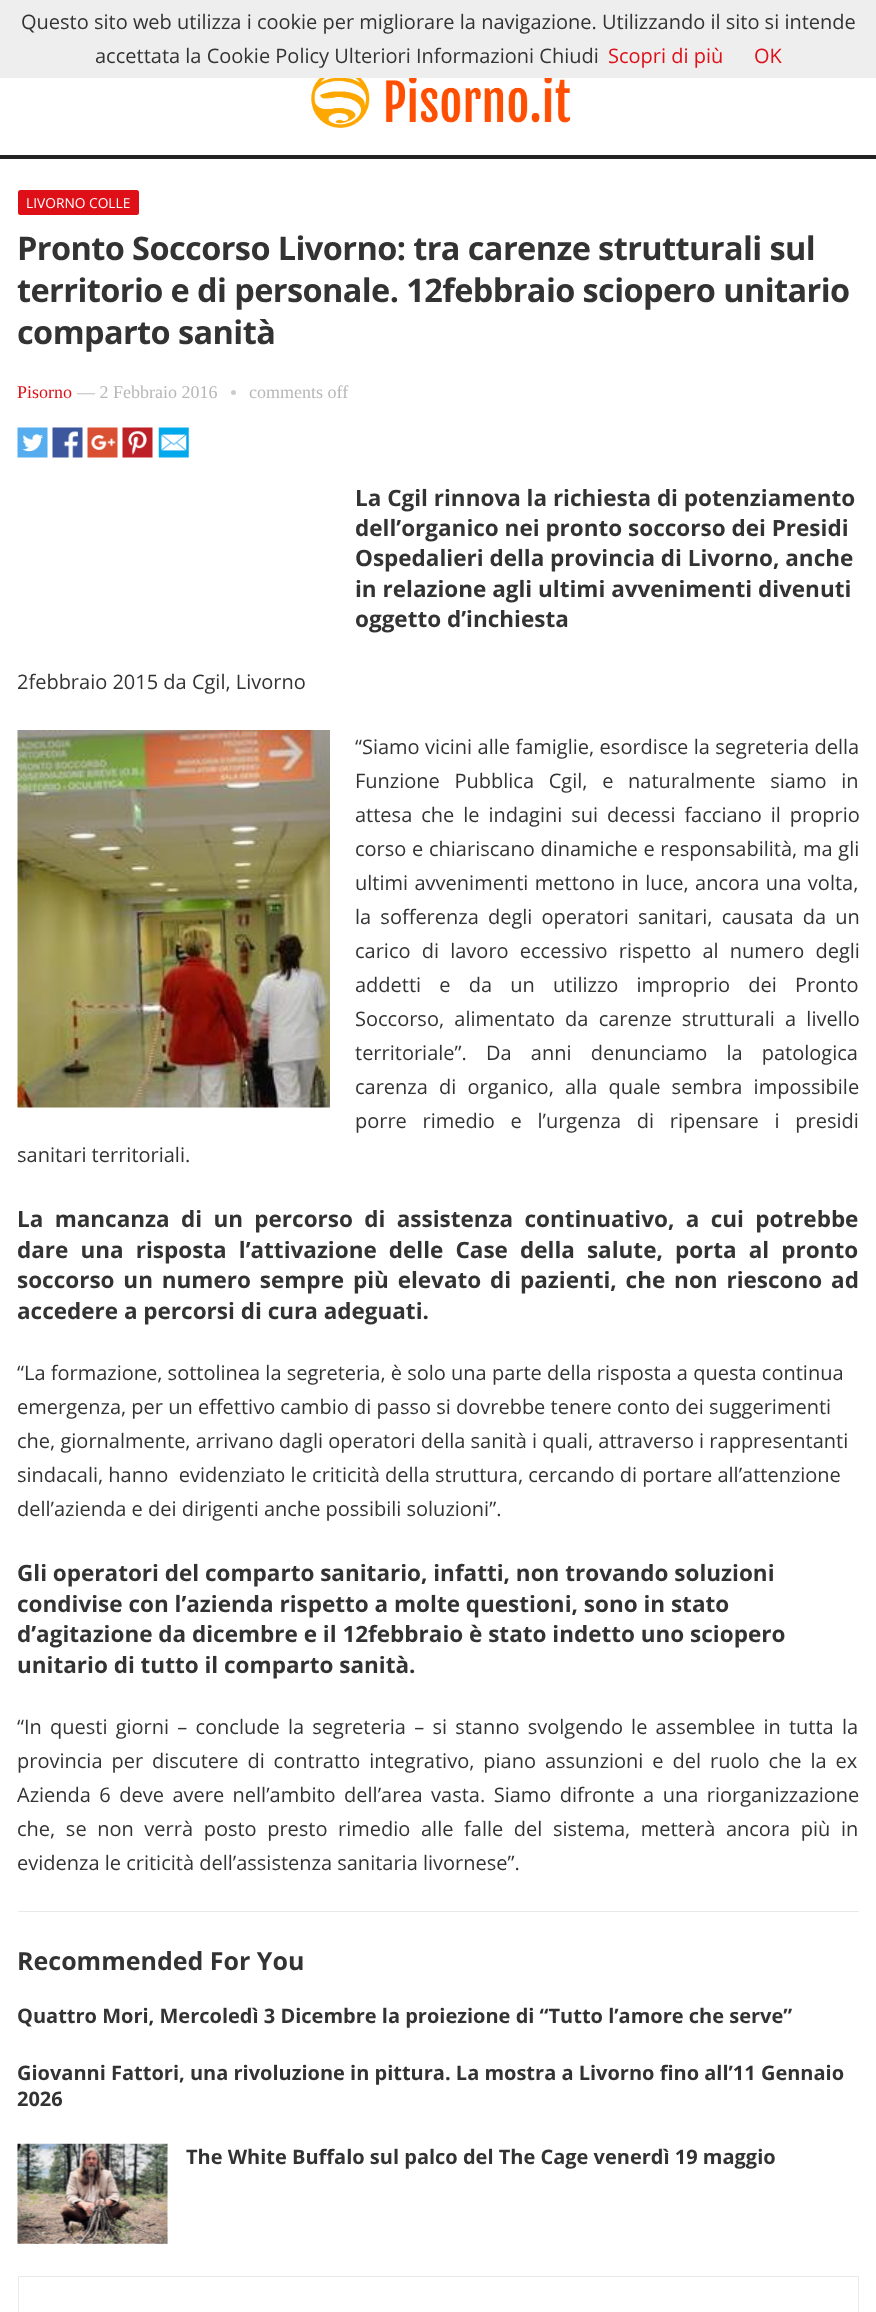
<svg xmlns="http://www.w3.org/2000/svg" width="876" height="2312">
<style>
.a{font:20px Open Sans;fill:#333}
.b{font:20px Open Sans;fill:#de0f17}
.c{font:13.75px Open Sans;fill:#fff}
.d{font:bold 32.5px Open Sans;letter-spacing:-0.6px;fill:#333}
.e{font:18px Liberation Serif;fill:#de0f17}
.f{font:18px Liberation Serif;fill:#b7b7b7}
.g{font:bold 22.5px Open Sans;fill:#333}
.h{font:bold 25px Open Sans;fill:#333}
.i{font:bold 20px Open Sans;fill:#333}
</style>
<rect width="100%" height="100%" fill="#fff"/>
<path fill="#eee" d="M0 0h876v78H0z"/>
<path fill="#222" d="M0 155h876v4H0z"/>
<image href="1.png" x="311" y="78" width="259" height="50"/>
<rect fill="#de0f17" x="18" y="190" width="121" height="25" rx="2.5"/>
<circle fill="#ccc" cx="233.5" cy="392.5" r="2.5"/>
<image href="2.png" x="17" y="427" width="31" height="31"/>
<image href="3.png" x="52" y="427" width="31" height="31"/>
<image href="4.png" x="87" y="427" width="31" height="31"/>
<image href="5.png" x="122" y="427" width="31" height="31"/>
<image href="6.png" x="158" y="427" width="31" height="31"/>
<image href="7.png" x="17" y="730" width="313" height="378"/>
<path fill="#e9e9e9" d="M18 1911h841v1H18z"/>
<image href="8.png" x="17" y="2143" width="151" height="101"/>
<path fill="none" stroke="#e9e9e9" d="M18.5 2276.5h840v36H18.5z"/>
<text class="a" x="21" y="29">Questo sito web utilizza i cookie per migliorare la navigazione. Utilizzando il sito si intende</text>
<text class="a" x="95" y="63">accettata la Cookie Policy Ulteriori Informazioni Chiudi</text>
<text class="b" x="608" y="63">Scopri di più</text>
<text class="b" x="754" y="63">OK</text>
<text class="c" x="26" y="208">LIVORNO COLLE</text>
<text class="d" x="17" y="260">Pronto Soccorso Livorno: tra carenze strutturali sul</text>
<text class="d" x="17" y="302">territorio e di personale. 12febbraio sciopero unitario</text>
<text class="d" x="17" y="344">comparto sanità</text>
<text class="e" x="17" y="398">Pisorno</text>
<text class="f" x="77" y="398">— 2 Febbraio 2016</text>
<text class="f" x="249" y="398">comments off</text>
<text class="g" x="355" y="506">La Cgil rinnova la richiesta di potenziamento</text>
<text class="g" x="355" y="536">dell’organico nei pronto soccorso dei Presidi</text>
<text class="g" x="355" y="566">Ospedalieri della provincia di Livorno, anche</text>
<text class="g" x="355" y="597">in relazione agli ultimi avvenimenti divenuti</text>
<text class="g" x="355" y="627">oggetto d’inchiesta</text>
<text class="a" x="17" y="689">2febbraio 2015 da Cgil, Livorno</text>
<text class="a" x="355" y="754" word-spacing="0.25">“Siamo vicini alle famiglie, esordisce la segreteria della</text>
<text class="a" x="355" y="788" word-spacing="9.5">Funzione Pubblica Cgil, e naturalmente siamo in</text>
<text class="a" x="355" y="822" word-spacing="3.75">attesa che le indagini sui decessi facciano il proprio</text>
<text class="a" x="355" y="856" word-spacing="0.5">corso e chiariscano dinamiche e responsabilità, ma gli</text>
<text class="a" x="355" y="890" word-spacing="1.25">ultimi avvenimenti mettono in luce, ancora una volta,</text>
<text class="a" x="355" y="924" word-spacing="4">la sofferenza degli operatori sanitari, causata da un</text>
<text class="a" x="355" y="958" word-spacing="6">carico di lavoro eccessivo rispetto al numero degli</text>
<text class="a" x="355" y="992" word-spacing="13">addetti e da un utilizzo improprio dei Pronto</text>
<text class="a" x="355" y="1026" word-spacing="5">Soccorso, alimentato da carenze strutturali a livello</text>
<text class="a" x="355" y="1060" word-spacing="14">territoriale”. Da anni denunciamo la patologica</text>
<text class="a" x="355" y="1094" word-spacing="6">carenza di organico, alla quale sembra impossibile</text>
<text class="a" x="355" y="1128" word-spacing="10.5">porre rimedio e l’urgenza di ripensare i presidi</text>
<text class="a" x="17" y="1162">sanitari territoriali.</text>
<text class="g" x="17" y="1227" word-spacing="5.5">La mancanza di un percorso di assistenza continuativo, a cui potrebbe</text>
<text class="g" x="17" y="1258" word-spacing="6.25">dare una risposta l’attivazione delle Case della salute, porta al pronto</text>
<text class="g" x="17" y="1288" word-spacing="3">soccorso un numero sempre più elevato di pazienti, che non riescono ad</text>
<text class="g" x="17" y="1319">accedere a percorsi di cura adeguati.</text>
<text class="a" x="17" y="1380">“La formazione, sottolinea la segreteria, è solo una parte della risposta a questa continua</text>
<text class="a" x="17" y="1414">emergenza, per un effettivo cambio di passo si dovrebbe tenere conto dei suggerimenti</text>
<text class="a" x="17" y="1448">che, giornalmente, arrivano dagli operatori della sanità i quali, attraverso i rappresentanti</text>
<text class="a" xml:space="preserve" x="17" y="1482">sindacali, hanno  evidenziato le criticità della struttura, cercando di portare all’attenzione</text>
<text class="a" x="17" y="1516">dell’azienda e dei dirigenti anche possibili soluzioni”.</text>
<text class="g" x="17" y="1581">Gli operatori del comparto sanitario, infatti, non trovando soluzioni</text>
<text class="g" x="17" y="1612">condivise con l’azienda rispetto a molte questioni, sono in stato</text>
<text class="g" x="17" y="1642">d’agitazione da dicembre e il 12febbraio è stato indetto uno sciopero</text>
<text class="g" x="17" y="1673">unitario di tutto il comparto sanità.</text>
<text class="a" x="17" y="1734" word-spacing="3">“In questi giorni – conclude la segreteria – si stanno svolgendo le assemblee in tutta la</text>
<text class="a" x="17" y="1768" word-spacing="3.75">provincia per discutere di contratto integrativo, piano assunzioni e del ruolo che la ex</text>
<text class="a" x="17" y="1802" word-spacing="3.25">Azienda 6 deve avere nell’ambito dell’area vasta. Siamo difronte a una riorganizzazione</text>
<text class="a" x="17" y="1836" word-spacing="5.4">che, se non verrà posto presto rimedio alle falle del sistema, metterà ancora più in</text>
<text class="a" x="17" y="1870">evidenza le criticità dell’assistenza sanitaria livornese”.</text>
<text class="h" x="17" y="1970">Recommended For You</text>
<text class="i" x="17" y="2023">Quattro Mori, Mercoledì 3 Dicembre la proiezione di “Tutto l’amore che serve”</text>
<text class="i" x="17" y="2080">Giovanni Fattori, una rivoluzione in pittura. La mostra a Livorno fino all’11 Gennaio</text>
<text class="i" x="17" y="2106">2026</text>
<text class="i" x="186" y="2164">The White Buffalo sul palco del The Cage venerdì 19 maggio</text>
</svg>
